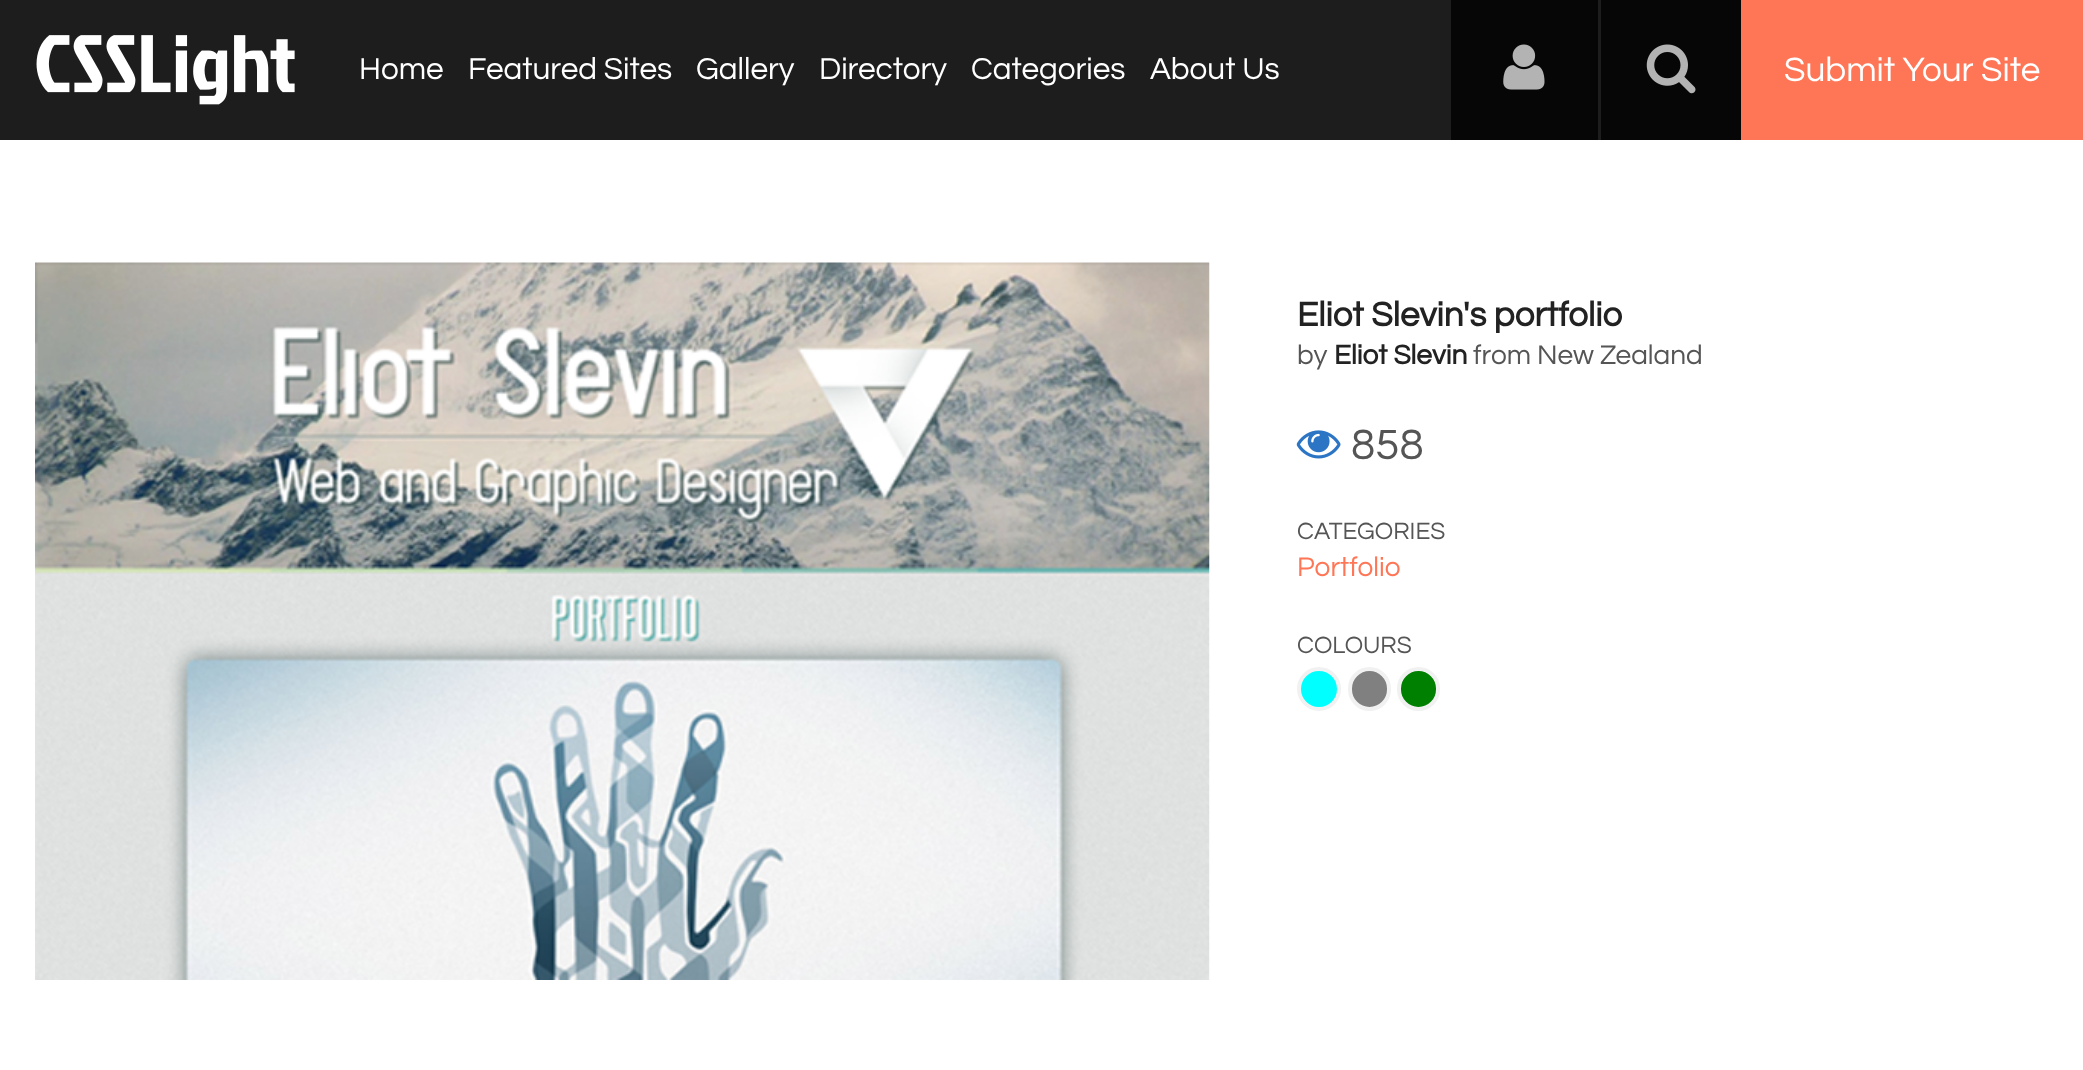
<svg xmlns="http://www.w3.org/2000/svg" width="2083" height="1070">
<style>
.a{font:31.5px Questrial;fill:#fff}
.b{font:35px Questrial;fill:#fff}
.c{font:bold 35px Questrial;fill:#222}
.d{font:28px Questrial;fill:#555}
.e{font:bold 28px Questrial;fill:#222}
.f{font:44px Questrial;fill:#555}
.g{font:24.5px Questrial;fill:#555}
.h{font:28px Questrial;fill:#ff7656}
</style>
<rect width="100%" height="100%" fill="#fff"/>
<path fill="#1d1d1d" d="M0 0h1601v140H0z"/>
<image href="1.png" x="36" y="35" width="259" height="70"/>
<path fill="#060606" d="M1451 0h147v140H1451z"/>
<image href="2.png" x="1503" y="44" width="42" height="46"/>
<path fill="#060606" d="M1601 0h140v140H1601z"/>
<image href="3.png" x="1646" y="44" width="50" height="50"/>
<path fill="#ff7656" d="M1741 0h342v140H1741z"/>
<image href="4.png" x="35" y="262" width="1175" height="718"/>
<image href="5.png" x="1296" y="430" width="45" height="29"/>
<circle fill="#0ff" stroke="#f1f1f1" stroke-width="4" cx="1319" cy="689" r="20"/>
<rect fill="#808080" stroke="#f1f1f1" stroke-width="4" x="1350" y="669" width="39" height="40" rx="19.5"/>
<rect fill="#008000" stroke="#f1f1f1" stroke-width="4" x="1399" y="669" width="39" height="40" rx="19.5"/>
<text class="a" x="359" y="79">Home</text>
<text class="a" x="468" y="79">Featured Sites</text>
<text class="a" x="696" y="79">Gallery</text>
<text class="a" x="819" y="79">Directory</text>
<text class="a" x="971" y="79">Categories</text>
<text class="a" x="1150" y="79">About Us</text>
<text class="b" x="1784" y="81">Submit Your Site</text>
<text class="c" x="1297" y="326">Eliot Slevin's portfolio</text>
<text class="d" x="1297" y="364">by</text>
<text class="e" x="1334" y="364">Eliot Slevin</text>
<text class="d" x="1473" y="364">from New Zealand</text>
<text class="f" x="1351" y="459">858</text>
<text class="g" x="1297" y="539">CATEGORIES</text>
<text class="h" x="1297" y="576">Portfolio</text>
<text class="g" x="1297" y="653">COLOURS</text>
</svg>
